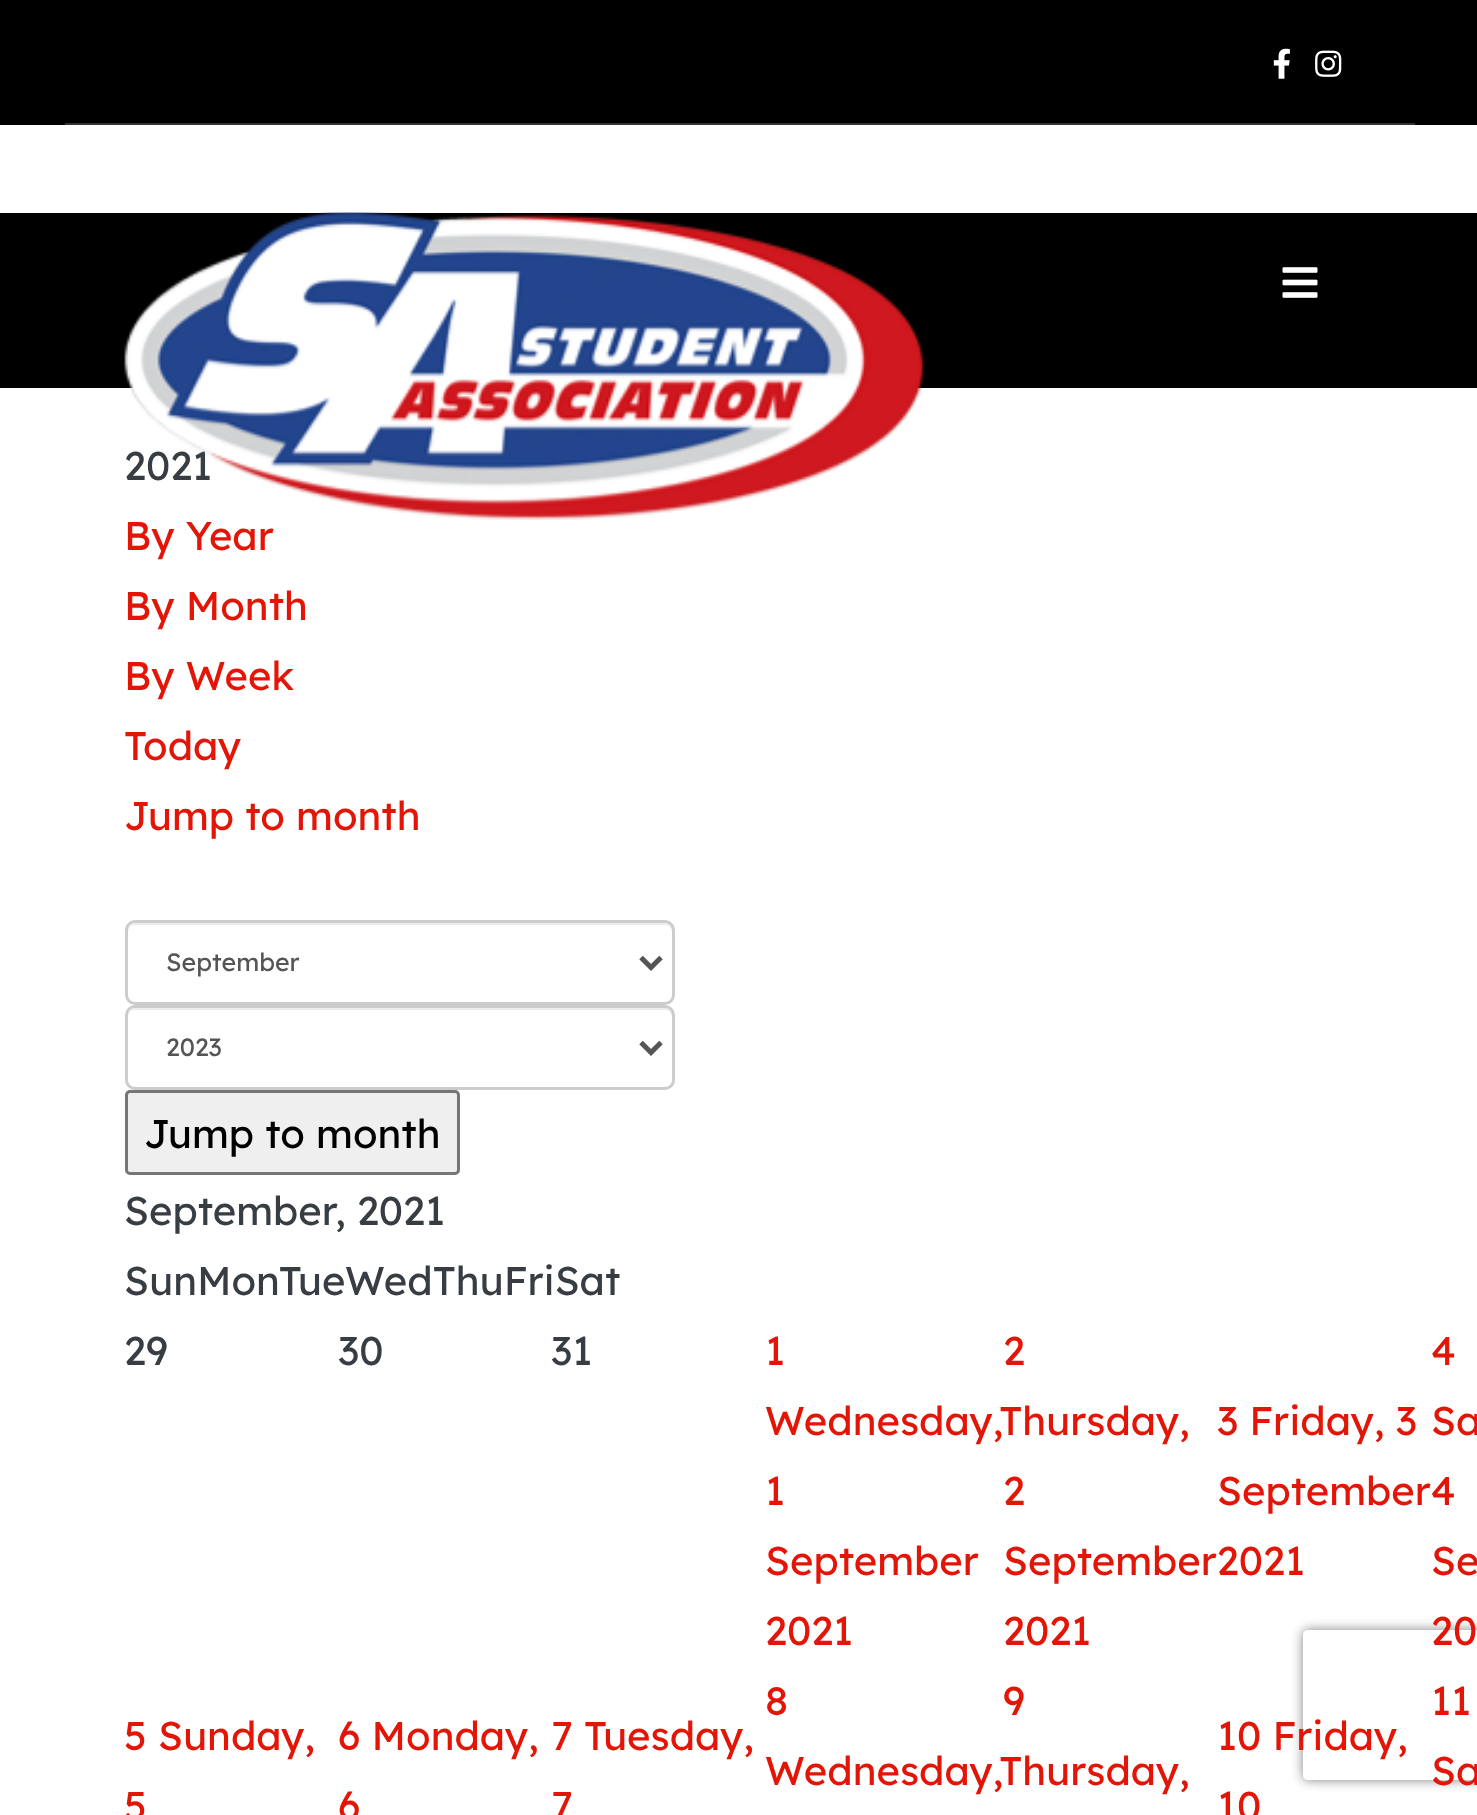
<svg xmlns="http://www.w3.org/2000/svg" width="1477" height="1815">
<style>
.a{font:40px Lexend;fill:#373d42}
.b{font:40px Lexend;fill:#e31507}
.c{font:25px Lexend;fill:#555}
.d{font:40px Lexend;fill:#000}
</style>
<defs>
<clipPath id="clip1"><path d="M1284 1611h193v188h-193zm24 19h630c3 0 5 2 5 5v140c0 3-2 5-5 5h-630c-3 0-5-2-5-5v-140c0-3 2-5 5-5z" clip-rule="evenodd"/></clipPath>
</defs>
<rect width="100%" height="100%" fill="#fff"/>
<path fill="#000" d="M0 0h1477v125H0z"/>
<path fill="#333" d="M65 123h1350v2H65z"/>
<image href="1.png" x="1273" y="48" width="17" height="31"/>
<image href="2.png" x="1315" y="50" width="27" height="27"/>
<path fill="#000" d="M0 213h1477v175H0z"/>
<image href="4.png" x="1282" y="267" width="36" height="31"/>
<path fill="#ececec" d="M135 925h530c4 0 7 3 7 7v67c1-1 1-3 1-4v-64c0-4-4-8-8-8h-529c-4 0-8 4-8 8v1c0-4 3-7 7-7z"/>
<rect fill="none" stroke="#ccc" stroke-width="3" x="126.5" y="921.5" width="547" height="82" rx="8.5"/>
<path fill="none" stroke="#555" stroke-width="5" d="M641 957.5l10 10l10-10"/>
<path fill="#ececec" d="M135 1010h530c4 0 7 3 7 8v66c1-1 1-2 1-4v-64c0-4-4-8-8-8h-529c-4 0-8 4-8 8v2c0-5 3-8 7-8z"/>
<rect fill="none" stroke="#ccc" stroke-width="3" x="126.5" y="1006.5" width="547" height="82" rx="8.5"/>
<path fill="none" stroke="#555" stroke-width="5" d="M641 1042.5l10 10l10-10"/>
<rect fill="#efefef" stroke="#767676" stroke-width="3" x="126.5" y="1091.5" width="332" height="82" rx="3.5"/>
<g clip-path="url(#clip1)">
<rect fill="#808080" filter="blur(6px)" x="1303" y="1630" width="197" height="150" rx="5"/>
</g>
<text class="a" x="124" y="480">2021</text>
<image href="3.png" x="124" y="212" width="801" height="308"/>
<text class="b" x="124" y="550">By Year</text>
<text class="b" x="124" y="620">By Month</text>
<text class="b" x="124" y="690">By Week</text>
<text class="b" x="124" y="760">Today</text>
<text class="b" x="124" y="830">Jump to month</text>
<text class="c" x="166" y="971">September</text>
<text class="c" x="166" y="1056">2023</text>
<text class="d" x="144" y="1148">Jump to month</text>
<text class="a" x="124" y="1225">September, 2021</text>
<text class="a" x="124" y="1295">SunMonTueWedThuFriSat</text>
<text class="a" x="124" y="1365">29</text>
<text class="a" x="338" y="1365">30</text>
<text class="a" x="551" y="1365">31</text>
<text class="b" x="765" y="1365">1</text>
<text class="b" x="765" y="1435">Wednesday,Thursday,</text>
<text class="b" x="765" y="1505">1</text>
<text class="b" x="765" y="1575">September</text>
<text class="b" x="765" y="1645">2021</text>
<text class="b" x="1003" y="1365">2</text>
<text class="b" x="1003" y="1505">2</text>
<text class="b" x="1003" y="1575">September2021</text>
<text class="b" x="1003" y="1645">2021</text>
<text class="b" x="1431" y="1365">4</text>
<text class="b" x="1431" y="1435">Sa</text>
<text class="b" x="1431" y="1575">Se</text>
<text class="b" x="1431" y="1645">20</text>
<text class="b" x="1217" y="1435">3 Friday, 3</text>
<text class="b" x="1217" y="1505">September4</text>
<text class="b" x="1003" y="1715">9</text>
<text class="b" x="1431" y="1715">11</text>
<text class="b" x="1431" y="1785">Sa</text>
<text class="b" x="124" y="1750">5 Sunday,</text>
<text class="b" x="124" y="1820">5</text>
<text class="b" x="338" y="1750">6 Monday,</text>
<text class="b" x="338" y="1820">6</text>
<text class="b" x="551" y="1750">7 Tuesday,</text>
<text class="b" x="551" y="1820">7</text>
<text class="b" x="765" y="1715">8</text>
<text class="b" x="765" y="1785">Wednesday,Thursday,</text>
<text class="b" x="1217" y="1750">10 Friday,</text>
<text class="b" x="1217" y="1820">10</text>
</svg>
